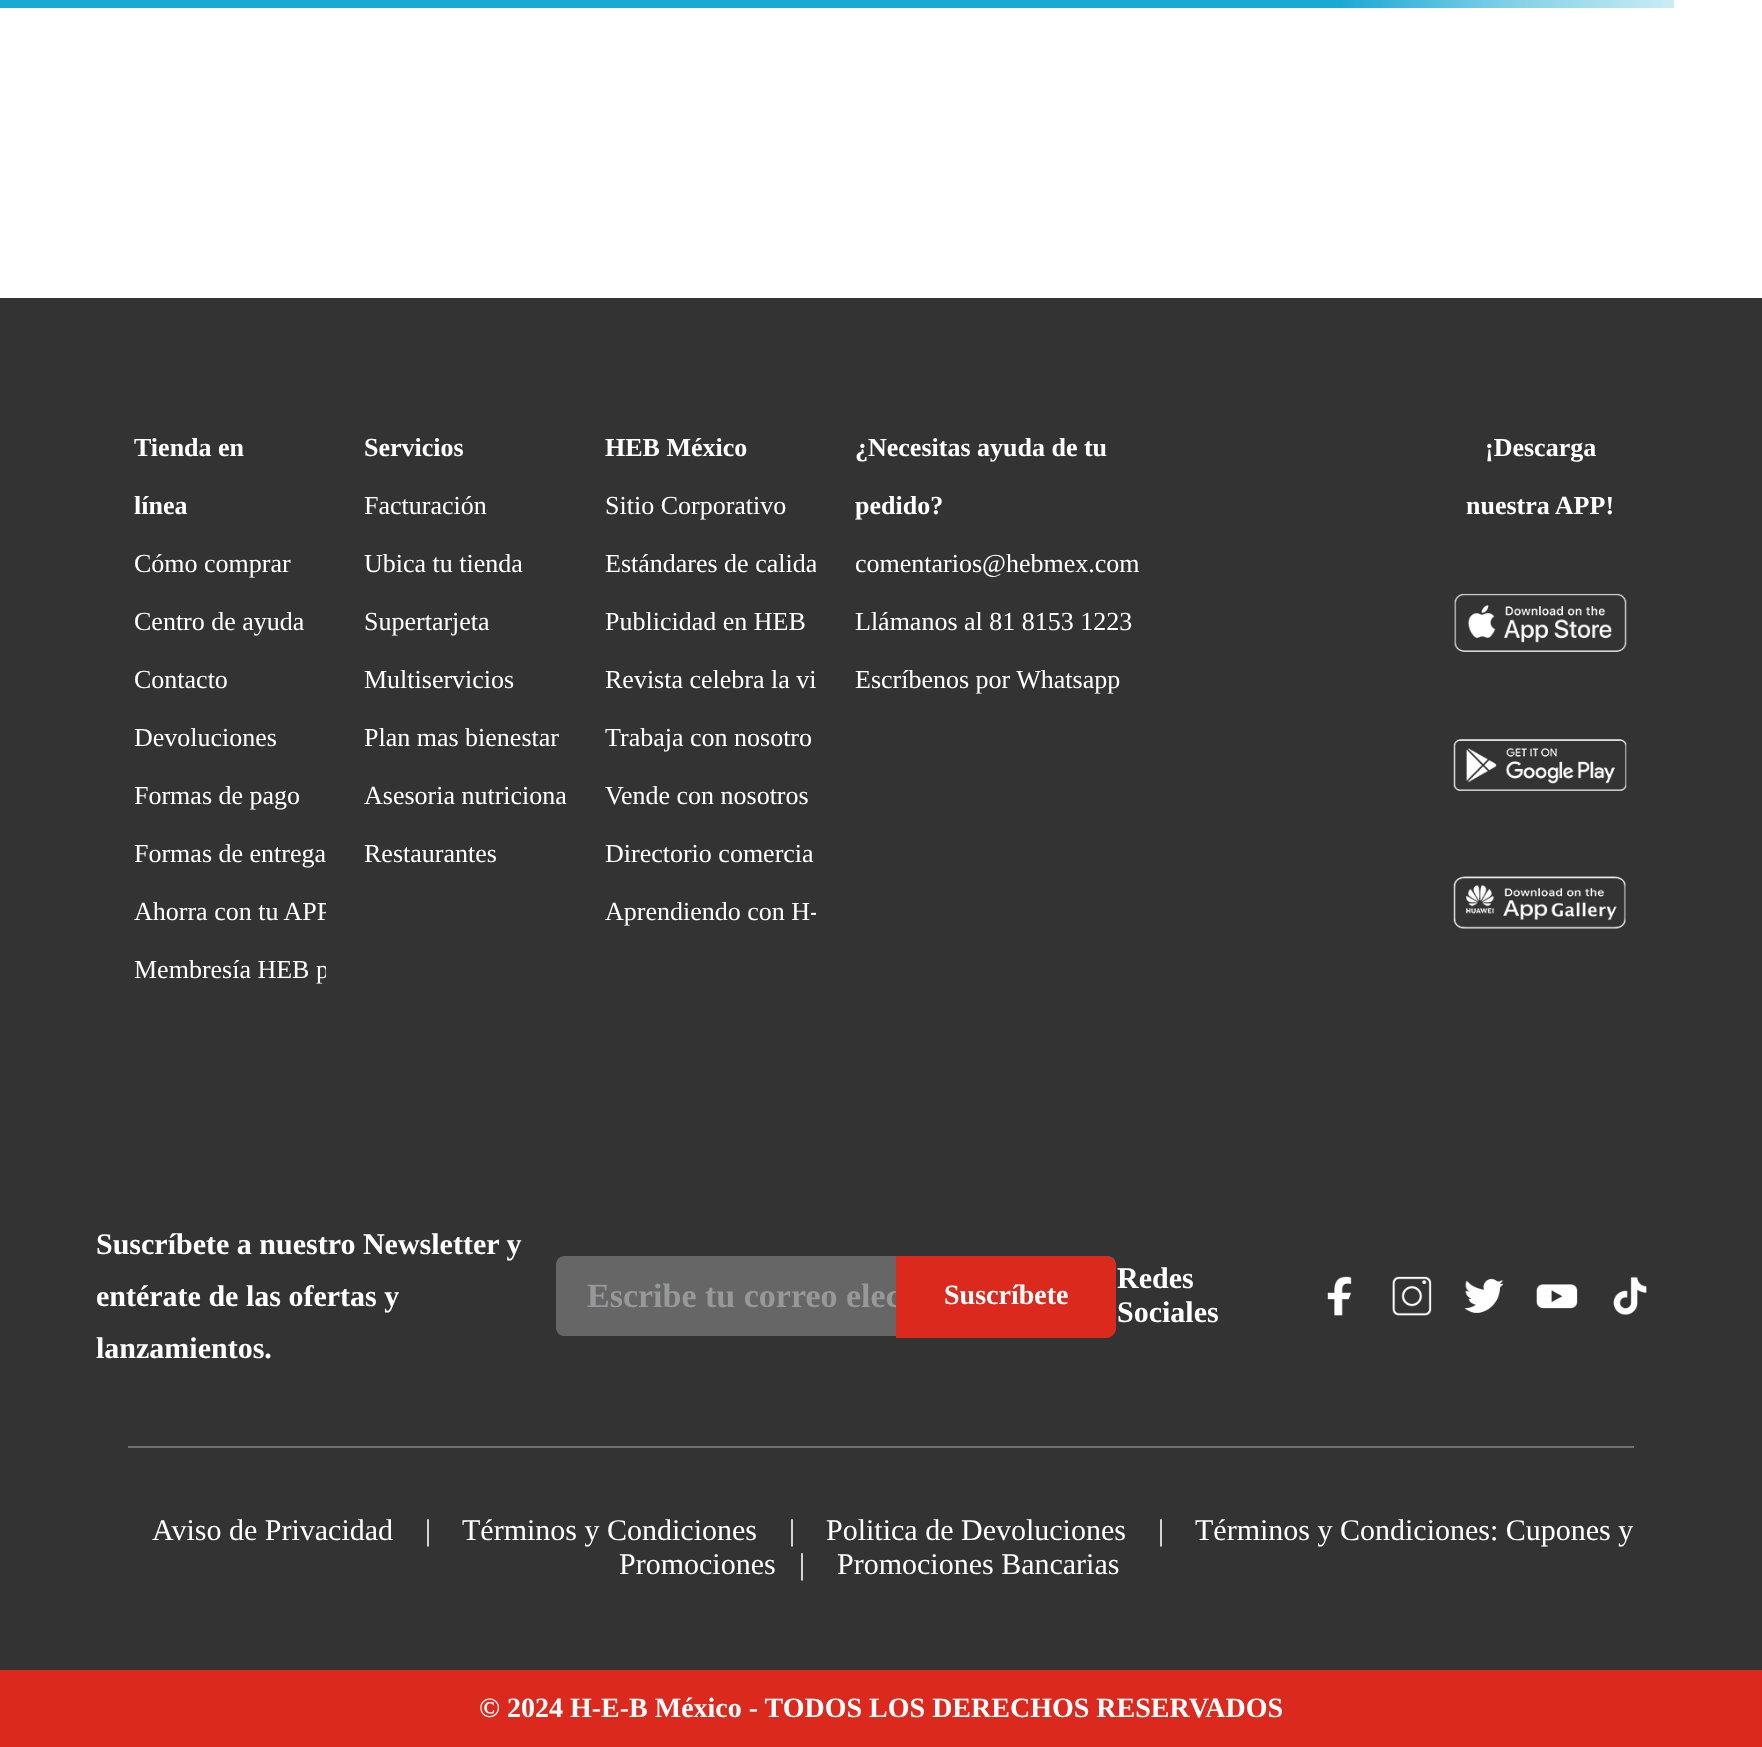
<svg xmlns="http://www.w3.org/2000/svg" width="1762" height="1747">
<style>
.a{font:bold 26px Liberation Serif;fill:#fff}
.b{font:26px Liberation Serif;fill:#fff}
.c{font:bold 30px Liberation Serif;fill:#fff}
.d{font:bold 34px Liberation Serif;fill:#979899}
.e{font:bold 28px Liberation Serif;fill:#fff}
.f{font:30px Liberation Serif;fill:#fff}
</style>
<defs>
<linearGradient id="g1" gradientUnits="userSpaceOnUse" x1="0" y1="4" x2="1674" y2="4"><stop offset="0.8" stop-color="#1aa9d3"/><stop offset="0.9" stop-color="#80cfe7"/><stop offset="1" stop-color="#ccecf5"/></linearGradient>
<clipPath id="clip1"><rect x="556" y="1256" width="560" height="80" rx="8"/></clipPath>
</defs>
<rect width="100%" height="100%" fill="#fff"/>
<path fill="url(#g1)" d="M0 0h1674v8H0z"/>
<path fill="#333" d="M0 298h1762v1372H0z"/>
<image href="1.png" x="1454" y="593" width="173" height="59"/>
<image href="2.png" x="1453" y="739" width="174" height="52"/>
<image href="3.png" x="1453" y="876" width="173" height="53"/>
<g clip-path="url(#clip1)">
<rect fill="#676666" x="556" y="1256" width="560" height="82" rx="8"/>
</g>
<image href="4.png" x="1327" y="1276" width="25" height="40"/>
<image href="5.png" x="1392" y="1276" width="40" height="40"/>
<image href="6.png" x="1464" y="1278" width="40" height="35"/>
<image href="7.png" x="1536" y="1284" width="42" height="25"/>
<image href="8.png" x="1613" y="1276" width="34" height="40"/>
<path fill="#707070" d="M128 1446h1506v2H128z"/>
<path fill="#dc291e" d="M0 1670h1762v77H0z"/>
<text class="a" x="134" y="456">Tienda en</text>
<text class="a" x="134" y="514">línea</text>
<text class="b" x="134" y="572">Cómo comprar</text>
<text class="b" x="134" y="630">Centro de ayuda</text>
<text class="b" x="134" y="688">Contacto</text>
<text class="b" x="134" y="746">Devoluciones</text>
<text class="b" x="134" y="804">Formas de pago</text>
<text class="b" x="134" y="862">Formas de entrega</text>
<text class="b" x="134" y="920">Ahorra con tu APP</text>
<text class="b" x="134" y="978">Membresía HEB p</text>
<path fill="#333" d="M326 903h5v74H326z"/>
<text class="a" x="364" y="456">Servicios</text>
<text class="b" x="364" y="514">Facturación</text>
<text class="b" x="364" y="572">Ubica tu tienda</text>
<text class="b" x="364" y="630">Supertarjeta</text>
<text class="b" x="364" y="688">Multiservicios</text>
<text class="b" x="364" y="746">Plan mas bienestar</text>
<text class="b" x="364" y="804">Asesoria nutriciona</text>
<text class="b" x="364" y="862">Restaurantes</text>
<text class="a" x="605" y="456">HEB México</text>
<text class="b" x="605" y="514">Sitio Corporativo</text>
<text class="b" x="605" y="572">Estándares de calida</text>
<text class="b" x="605" y="630">Publicidad en HEB</text>
<text class="b" x="605" y="688">Revista celebra la vi</text>
<text class="b" x="605" y="746">Trabaja con nosotro</text>
<text class="b" x="605" y="804">Vende con nosotros</text>
<text class="b" x="605" y="862">Directorio comercia</text>
<text class="b" x="605" y="920">Aprendiendo con H-</text>
<path fill="#333" d="M816 571h3v344H816z"/>
<text class="a" x="855" y="456">¿Necesitas ayuda de tu</text>
<text class="a" x="855" y="514">pedido?</text>
<text class="b" x="855" y="572">comentarios@hebmex.com</text>
<text class="b" x="855" y="630">Llámanos al 81 8153 1223</text>
<text class="b" x="855" y="688">Escríbenos por Whatsapp</text>
<text class="a" x="1485" y="456">¡Descarga</text>
<text class="a" x="1466" y="514">nuestra APP!</text>
<text class="c" x="96" y="1254">Suscríbete a nuestro Newsletter y</text>
<text class="c" x="96" y="1306">entérate de las ofertas y</text>
<text class="c" x="96" y="1358">lanzamientos.</text>
<text class="d" x="587" y="1307">Escribe tu correo elec</text>
<path fill="#dc291e" d="M896 1256h210c5.5 0 10 4.5 10 10v62c0 5.5-4.5 10-10 10h-210z"/>
<text class="e" x="944" y="1304">Suscríbete</text>
<text class="c" x="1117" y="1288">Redes</text>
<text class="c" x="1117" y="1322">Sociales</text>
<text class="f" x="152" y="1540">Aviso de Privacidad</text>
<text class="f" x="425" y="1540">|</text>
<text class="f" x="462" y="1540">Términos y Condiciones</text>
<text class="f" x="789" y="1540">|</text>
<text class="f" x="826" y="1540">Politica de Devoluciones</text>
<text class="f" x="1158" y="1540">|</text>
<text class="f" x="1195" y="1540">Términos y Condiciones: Cupones y</text>
<text class="f" x="619" y="1574">Promociones</text>
<text class="f" x="799" y="1574">|</text>
<text class="f" x="837" y="1574">Promociones Bancarias</text>
<text class="e" x="479" y="1717">© 2024 H-E-B México - TODOS LOS DERECHOS RESERVADOS</text>
</svg>
